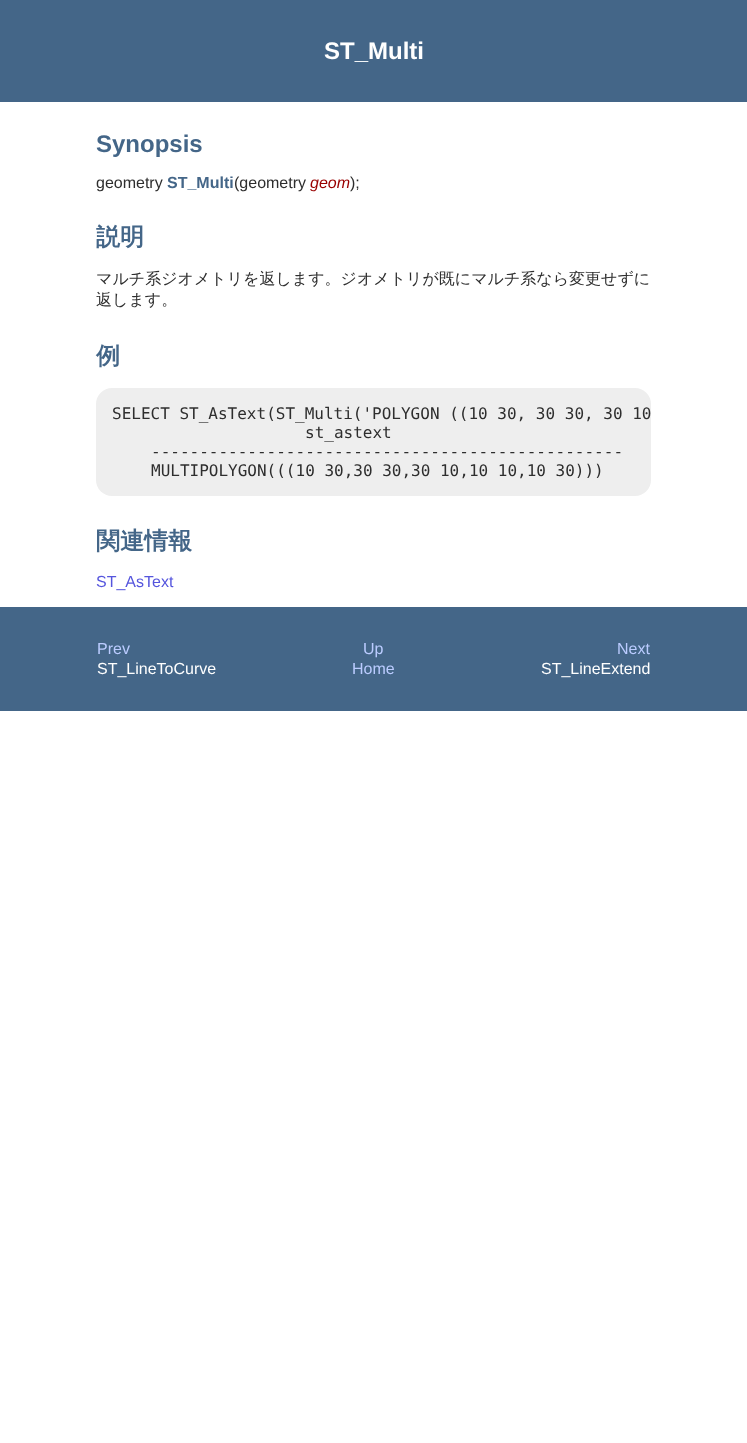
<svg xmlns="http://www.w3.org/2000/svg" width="747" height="1443">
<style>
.a{font:bold 24px Liberation Sans;fill:#fff}
.b{font:bold 24px Liberation Sans;fill:#468}
.c{font:16px Liberation Sans;fill:#2e2e2e}
.d{font:bold 16px Liberation Sans;fill:#468}
.e{font:italic 16px Liberation Sans;fill:#900}
.f{font:bold 24px WenQuanYi Zen Hei;fill:#468}
.g{font:500 16px WenQuanYi Zen Hei;fill:#2e2e2e}
.h{font:16px DejaVu Sans Mono;fill:#2e2e2e}
.i{font:16px Liberation Sans;fill:#55d}
.j{font:16px Liberation Sans;fill:#bcf}
.k{font:16px Liberation Sans;fill:#fff}
</style>
<rect width="100%" height="100%" fill="#fff"/>
<path fill="#468" d="M0 0h747v102H0z"/>
<rect fill="#eee" x="96" y="388" width="555" height="108" rx="16"/>
<path fill="#468" d="M0 607h747v104H0z"/>
<text class="a" x="324" y="59">ST_Multi</text>
<text class="b" x="96" y="152">Synopsis</text>
<text class="c" x="96" y="188">geometry</text>
<text class="d" x="167" y="188">ST_Multi</text>
<text class="c" x="234" y="188">(geometry</text>
<text class="e" x="310" y="188">geom</text>
<text class="c" x="350" y="188">);</text>
<text class="f" x="96" y="245">説明</text>
<text class="g" x="96" y="284">マルチ系ジオメトリを返します。ジオメトリが既にマルチ系なら変更せずに</text>
<text class="g" x="96" y="305">返します。</text>
<text class="f" x="96" y="364">例</text>
<text class="h" x="112" y="419">SELECT ST_AsText(ST_Multi('POLYGON ((10 30, 30 30, 30 10</text>
<text class="h" x="305" y="438">st_astext</text>
<text class="h" x="151" y="457">-------------------------------------------------</text>
<text class="h" x="151" y="476">MULTIPOLYGON(((10 30,30 30,30 10,10 10,10 30)))</text>
<text class="f" x="96" y="549">関連情報</text>
<text class="i" x="96" y="587">ST_AsText</text>
<text class="j" x="97" y="654">Prev</text>
<text class="j" x="363" y="654">Up</text>
<text class="j" x="617" y="654">Next</text>
<text class="k" x="97" y="674">ST_LineToCurve</text>
<text class="j" x="352" y="674">Home</text>
<text class="k" x="541" y="674">ST_LineExtend</text>
</svg>
